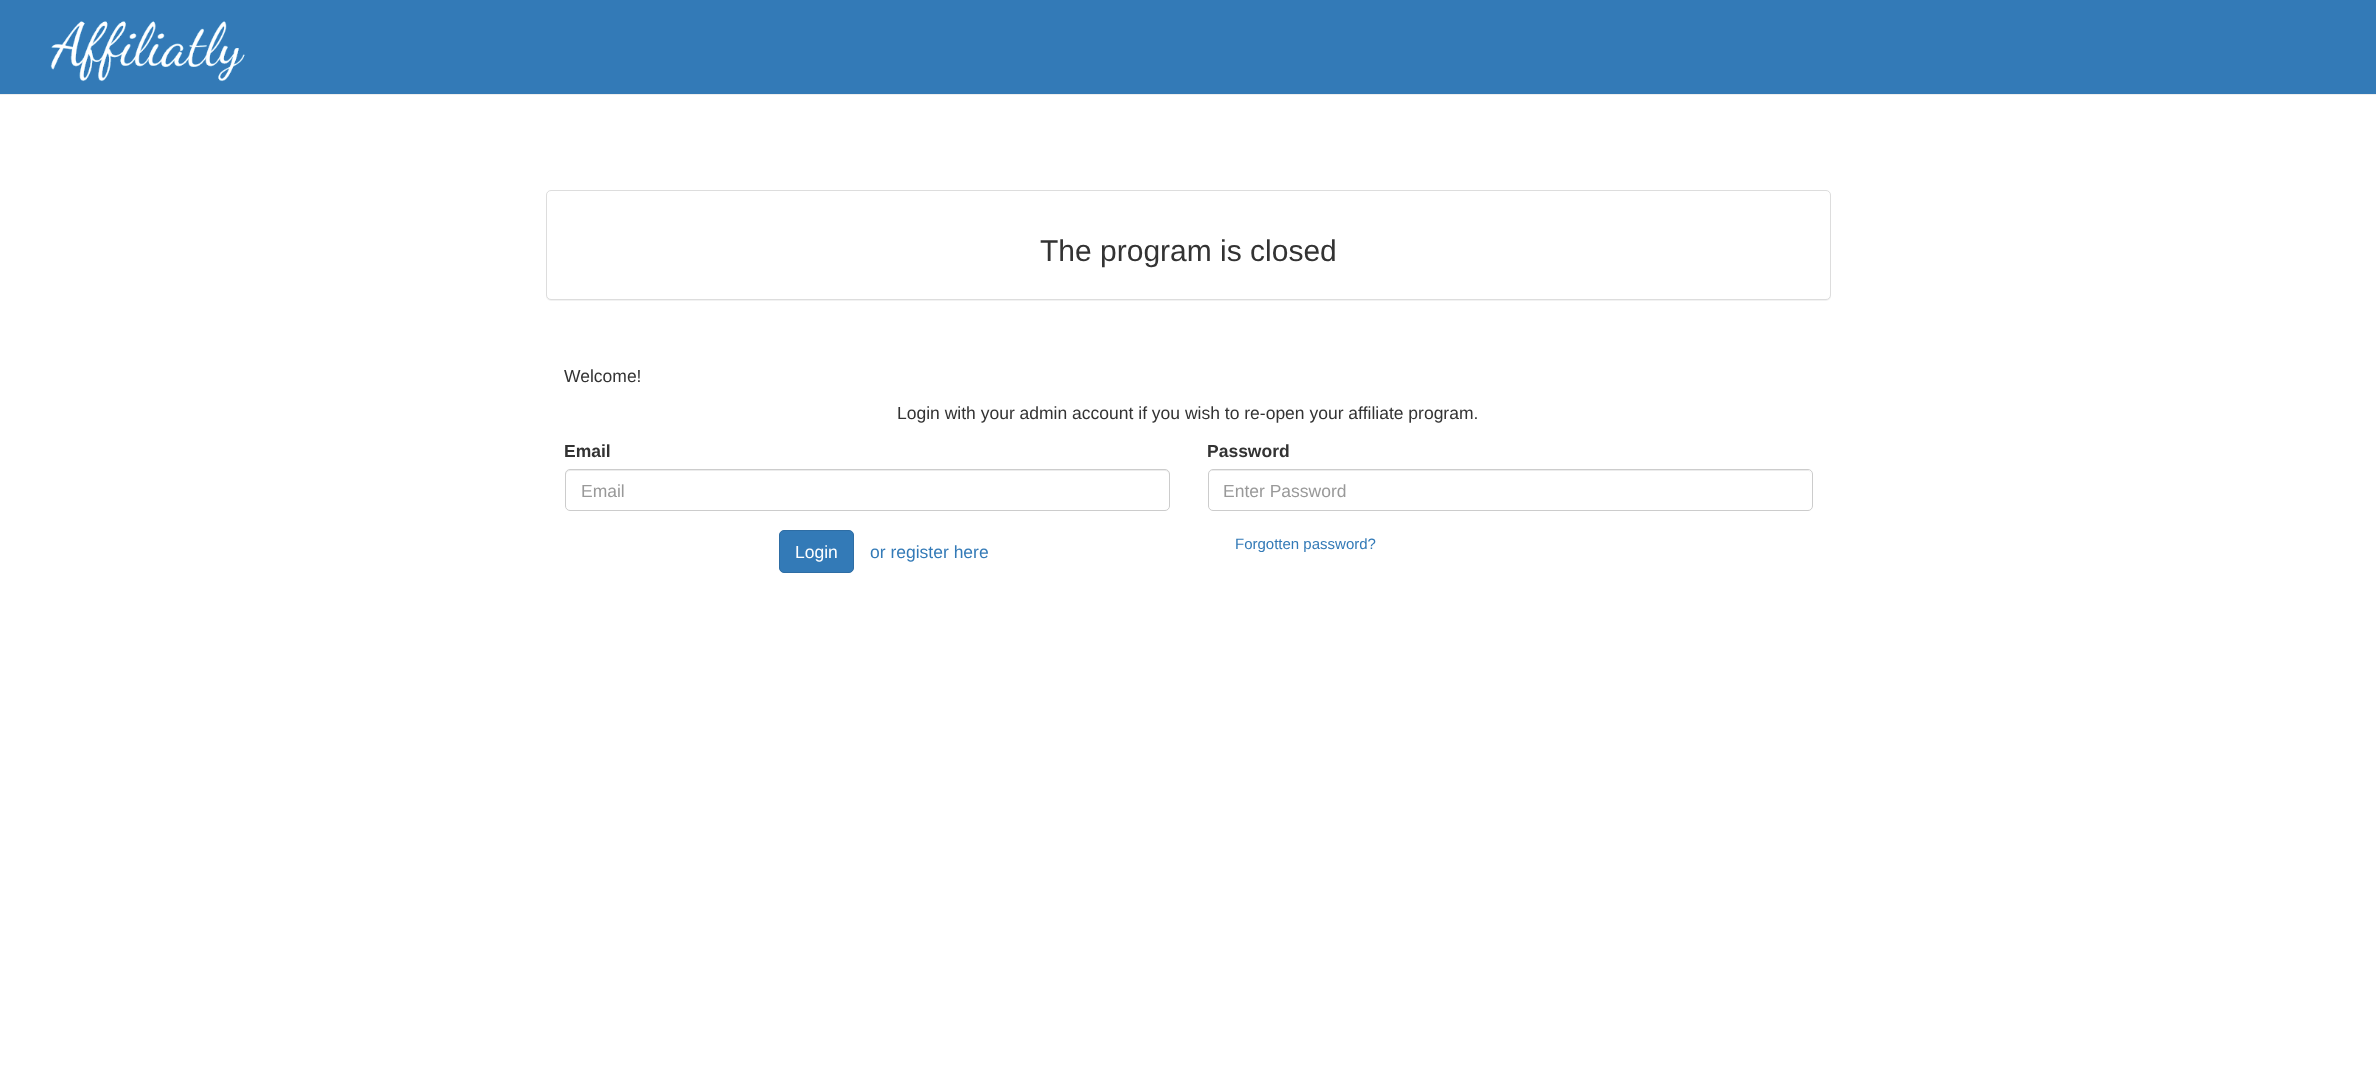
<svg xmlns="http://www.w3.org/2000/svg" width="2376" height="1092">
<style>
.a{font:30px Liberation Sans;fill:#333}
.b{font:17.5px Liberation Sans;fill:#333}
.c{font:bold 17.5px Liberation Sans;fill:#333}
.d{font:17.5px Liberation Sans;fill:#999}
.e{font:17.5px Liberation Sans;fill:#fff}
.f{font:17.5px Liberation Sans;fill:#337ab7}
.g{font:15px Liberation Sans;fill:#337ab7}
</style>
<rect width="100%" height="100%" fill="#fff"/>
<path fill="#337ab7" d="M0 0h2376v94H0z"/>
<path fill="#eee" d="M0 94h2376v1H0z"/>
<image href="1.png" x="50" y="21" width="195" height="61"/>
<rect fill="#0000000d" filter="blur(0.5px)" x="546" y="191" width="1285" height="110" rx="5"/>
<rect fill="#fff" stroke="#ddd" x="546.5" y="190.5" width="1284" height="109" rx="4.5"/>
<path fill="#ececec" d="M570 471h595c2 0 4 2 4 4v-1c0-2-2-4-4-4h-595c-2 0-4 2-4 4v1c0-2 2-4 4-4z"/>
<rect fill="none" stroke="#ccc" x="565.5" y="469.5" width="604" height="41" rx="4.5"/>
<path fill="#ececec" d="M1212 471h596c2 0 3 2 3 4v-1c0-2-2-4-4-4h-594c-2 0-4 2-4 4v1c0-2 1-4 3-4z"/>
<rect fill="none" stroke="#ccc" x="1208.5" y="469.5" width="604" height="41" rx="4.5"/>
<rect fill="#337ab7" stroke="#2e6da4" x="779.5" y="530.5" width="74" height="42" rx="4.5"/>
<text class="a" x="1040" y="261">The program is closed</text>
<text class="b" x="564" y="382">Welcome!</text>
<text class="b" x="897" y="419">Login with your admin account if you wish to re-open your affiliate program.</text>
<text class="c" x="564" y="457">Email</text>
<text class="d" x="581" y="497">Email</text>
<text class="c" x="1207" y="457">Password</text>
<text class="d" x="1223" y="497">Enter Password</text>
<text class="e" x="795" y="558">Login</text>
<text class="f" x="870" y="558">or register here</text>
<text class="g" x="1235" y="549">Forgotten password?</text>
</svg>
